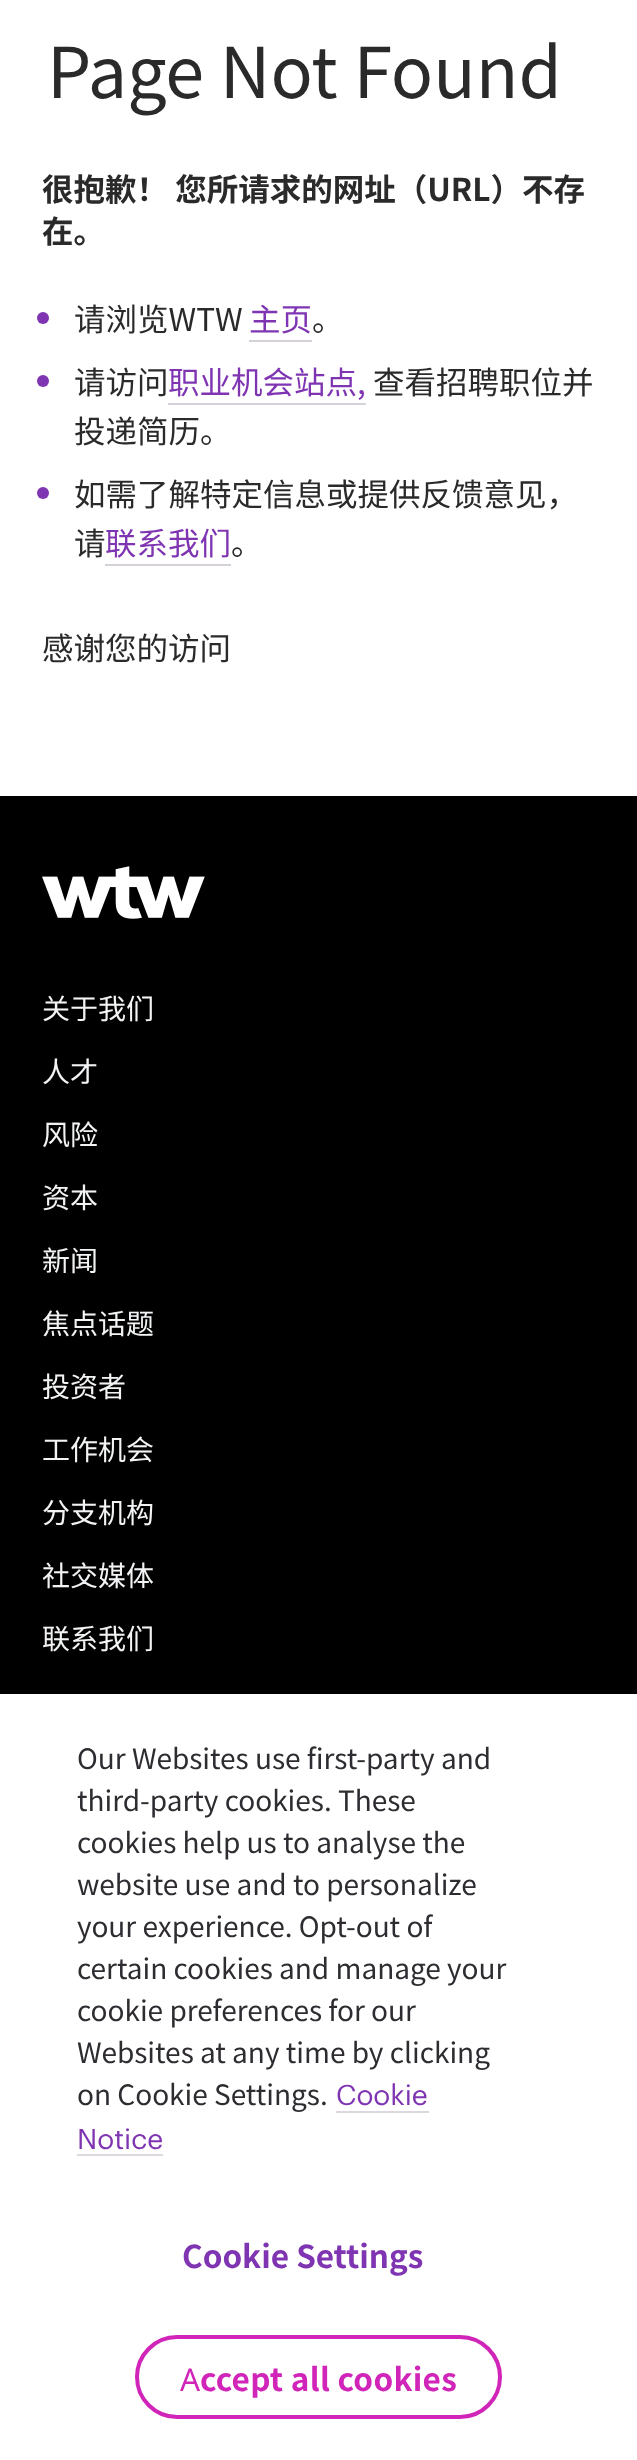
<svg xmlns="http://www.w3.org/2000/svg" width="637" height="2460">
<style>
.a{font:70px Noto Sans SC;fill:#2a2a2b}
.b{font:bold 31.5px Noto Sans SC;fill:#2a2a2b}
.c{font:31.5px Noto Sans SC;fill:#2a2a2b}
.d{font:31.5px Noto Sans SC;fill:#7f35b2}
.e{font:28px Noto Sans SC;fill:#f2f3f4}
.f{font:28px Noto Sans SC;fill:#2f2c31}
.g{font:28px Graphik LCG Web;fill:#7f35b2}
.h{font:bold 31.5px Noto Sans SC;fill:#7f35b2}
.i{font:31.5px Noto Sans;letter-spacing:0.3px;fill:#d124b8}
.j{font:bold 31.5px Noto Sans SC;letter-spacing:0.3px;fill:#d124b8}
</style>
<rect width="100%" height="100%" fill="#fff"/>
<circle fill="#7f35b2" cx="43" cy="318" r="6"/>
<path fill="#d6d1d9" d="M249 340h63v2H249z"/>
<circle fill="#7f35b2" cx="43" cy="381" r="6"/>
<path fill="#d6d1d9" d="M168 403h198v2H168z"/>
<circle fill="#7f35b2" cx="43" cy="493" r="6"/>
<path fill="#d6d1d9" d="M105 564h126v2H105z"/>
<path fill="#000" d="M0 796h637v898H0z"/>
<image href="1.png" x="42" y="866" width="163" height="53"/>
<path fill="#00000033" filter="blur(16px)" d="M0 1694h637v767H0z"/>
<path fill="#fff" d="M0 1694h637v766H0z"/>
<path fill="#ddd8e0" d="M336 2111h93v2H336z"/>
<path fill="#ddd8e0" d="M77 2154h86v2H77z"/>
<rect fill="none" stroke="#d124b8" stroke-width="4" x="137" y="2337" width="363" height="80" rx="40"/>
<text class="a" x="47" y="98">Page Not Found</text>
<text class="b" x="42" y="201">很抱歉！ 您所请求的网址（URL）不存</text>
<text class="b" x="42" y="243">在。</text>
<text class="c" x="74" y="331">请浏览WTW</text>
<text class="d" x="249" y="331">主页</text>
<text class="c" x="312" y="331">。</text>
<text class="c" x="74" y="394">请访问</text>
<text class="d" x="168" y="394">职业机会站点,</text>
<text class="c" x="373" y="394">查看招聘职位并</text>
<text class="c" x="74" y="443">投递简历。</text>
<text class="c" x="74" y="506">如需了解特定信息或提供反馈意见，</text>
<text class="c" x="74" y="555">请</text>
<text class="d" x="105" y="555">联系我们</text>
<text class="c" x="231" y="555">。</text>
<text class="c" x="42" y="660">感谢您的访问</text>
<text class="e" x="42" y="1019">关于我们</text>
<text class="e" x="42" y="1082">人才</text>
<text class="e" x="42" y="1145">风险</text>
<text class="e" x="42" y="1208">资本</text>
<text class="e" x="42" y="1271">新闻</text>
<text class="e" x="42" y="1334">焦点话题</text>
<text class="e" x="42" y="1397">投资者</text>
<text class="e" x="42" y="1460">工作机会</text>
<text class="e" x="42" y="1523">分支机构</text>
<text class="e" x="42" y="1586">社交媒体</text>
<text class="e" x="42" y="1649">联系我们</text>
<text class="f" x="77" y="1769">Our Websites use first-party and</text>
<text class="f" x="77" y="1811">third-party cookies. These</text>
<text class="f" x="77" y="1853">cookies help us to analyse the</text>
<text class="f" x="77" y="1895">website use and to personalize</text>
<text class="f" x="77" y="1937">your experience. Opt-out of</text>
<text class="f" x="77" y="1979">certain cookies and manage your</text>
<text class="f" x="77" y="2021">cookie preferences for our</text>
<text class="f" x="77" y="2063">Websites at any time by clicking</text>
<text class="f" x="77" y="2105">on Cookie Settings.</text>
<text class="g" x="336" y="2105">Cookie</text>
<text class="g" x="77" y="2149">Notice</text>
<text class="h" x="182" y="2268">Cookie Settings</text>
<text class="i" x="180" y="2391">A</text>
<text class="j" x="200" y="2391">ccept all cookies</text>
</svg>
